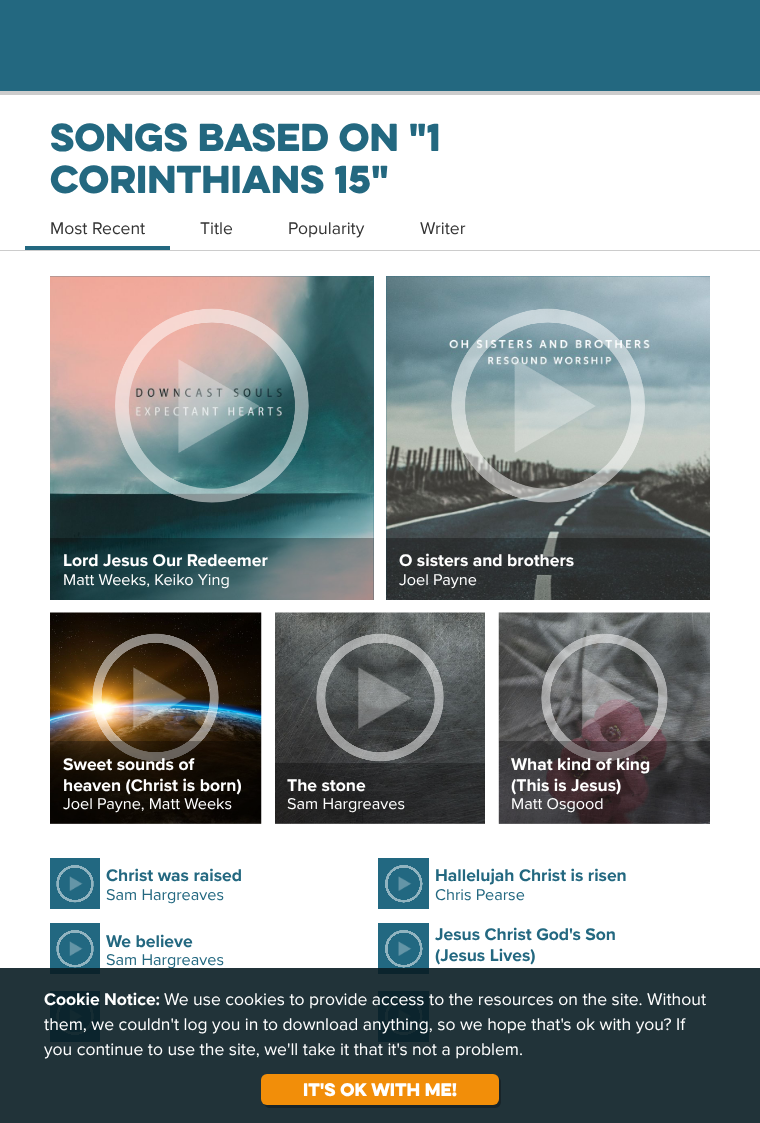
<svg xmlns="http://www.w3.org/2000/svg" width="760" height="1123">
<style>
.a{font:900 35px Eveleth;fill:#236880}
.b{font:17.5px Proxima Nova;fill:#333}
.c{font:bold 17.5px Proxima Nova;fill:#fff}
.d{font:16.25px Proxima Nova;fill:#fff}
.e{font:bold 17.5px Proxima Nova;fill:#236880}
.f{font:16.25px Proxima Nova;fill:#236880}
.g{font:17.5px Proxima Nova;fill:#fff}
.h{font:900 16.25px Eveleth;fill:#fff}
</style>
<rect width="100%" height="100%" fill="#fff"/>
<path fill="#ccc" d="M0 91h760v4H0z"/>
<path fill="#236880" d="M0 0h760v91H0z"/>
<path fill="#ccc" d="M0 250h760v1H0z"/>
<path fill="#236880" d="M25 246h145v4H25z"/>
<path fill="#236880" d="M50 276h324v324H50z"/>
<image href="1.png" x="50" y="276" width="324" height="324"/>
<image href="2.png" x="178" y="359" width="82" height="94"/>
<image href="3.png" x="115" y="308" width="194" height="195"/>
<path fill="#0000004d" d="M50 538h324v62H50z"/>
<path fill="#236880" d="M386 276h324v324H386z"/>
<image href="4.png" x="386" y="276" width="324" height="324"/>
<image href="5.png" x="514" y="359" width="82" height="94"/>
<image href="6.png" x="451" y="308" width="194" height="195"/>
<path fill="#0000004d" d="M386 538h324v62H386z"/>
<image href="7.png" x="50" y="612" width="212" height="212"/>
<image href="8.png" x="133" y="667" width="54" height="62"/>
<image href="9.png" x="92" y="633" width="127" height="129"/>
<path fill="#0000004d" d="M50 741h211v83H50z"/>
<image href="10.png" x="275" y="612" width="210" height="212"/>
<image href="11.png" x="358" y="667" width="54" height="62"/>
<image href="12.png" x="316" y="633" width="128" height="129"/>
<path fill="#0000004d" d="M275 763h210v61H275z"/>
<image href="13.png" x="498" y="612" width="212" height="212"/>
<image href="14.png" x="582" y="667" width="53" height="62"/>
<image href="15.png" x="541" y="633" width="127" height="129"/>
<path fill="#0000004d" d="M499 741h211v83H499z"/>
<path fill="#226881" d="M50 858h50v51H50z"/>
<image href="16.png" x="69" y="876" width="14" height="15"/>
<image href="17.png" x="56" y="865" width="38" height="38"/>
<path fill="#226881" d="M378 858h51v51H378z"/>
<image href="18.png" x="398" y="876" width="14" height="15"/>
<image href="19.png" x="385" y="865" width="38" height="38"/>
<path fill="#226881" d="M50 923h50v51H50z"/>
<image href="16.png" x="69" y="941" width="14" height="15"/>
<image href="17.png" x="56" y="930" width="38" height="38"/>
<path fill="#226881" d="M378 923h51v51H378z"/>
<image href="18.png" x="398" y="941" width="14" height="15"/>
<image href="19.png" x="385" y="930" width="38" height="38"/>
<path fill="#226881" d="M50 991h50v51H50z"/>
<image href="20.png" x="69" y="1009" width="14" height="15"/>
<image href="21.png" x="56" y="997" width="38" height="38"/>
<path fill="#226881" d="M378 991h51v51H378z"/>
<image href="22.png" x="398" y="1009" width="14" height="15"/>
<image href="23.png" x="385" y="997" width="38" height="38"/>
<text class="a" x="50" y="151">Songs based on "1</text>
<text class="a" x="50" y="193">Corinthians 15"</text>
<text class="b" x="50" y="234">Most Recent</text>
<text class="b" x="200" y="234">Title</text>
<text class="b" x="288" y="234">Popularity</text>
<text class="b" x="420" y="234">Writer</text>
<text class="c" x="63" y="566">Lord Jesus Our Redeemer</text>
<text class="d" x="63" y="585">Matt Weeks, Keiko Ying</text>
<text class="c" x="399" y="566">O sisters and brothers</text>
<text class="d" x="399" y="585">Joel Payne</text>
<text class="c" x="63" y="770">Sweet sounds of</text>
<text class="c" x="63" y="791">heaven (Christ is born)</text>
<text class="d" x="63" y="809">Joel Payne, Matt Weeks</text>
<text class="c" x="287" y="791">The stone</text>
<text class="d" x="287" y="809">Sam Hargreaves</text>
<text class="c" x="511" y="770">What kind of king</text>
<text class="c" x="511" y="791">(This is Jesus)</text>
<text class="d" x="511" y="809">Matt Osgood</text>
<text class="e" x="106" y="881">Christ was raised</text>
<text class="f" x="106" y="900">Sam Hargreaves</text>
<text class="e" x="435" y="881">Hallelujah Christ is risen</text>
<text class="f" x="435" y="900">Chris Pearse</text>
<text class="e" x="106" y="947">We believe</text>
<text class="f" x="106" y="965">Sam Hargreaves</text>
<text class="e" x="435" y="940">Jesus Christ God's Son</text>
<text class="e" x="435" y="961">(Jesus Lives)</text>
<path fill="#091d24e6" d="M0 968h760v155H0z"/>
<text class="c" x="44" y="1005">Cookie Notice:</text>
<text class="g" x="164" y="1005">We use cookies to provide access to the resources on the site. Without</text>
<text class="g" x="44" y="1030">them, we couldn't log you in to download anything, so we hope that's ok with you? If</text>
<text class="g" x="44" y="1055">you continue to use the site, we'll take it that it's not a problem.</text>
<path fill="#182429" d="M264 1104c1 2 3 4 6 4h225c3 0 6-3 6-6v-20c0-2-1-4-3-5c2 3 1 9 1 12c0 5 2 16-7 16h-226z"/>
<rect fill="#f28e09" x="261" y="1074" width="238" height="31" rx="6"/>
<text class="h" x="303" y="1096">It's ok with me!</text>
</svg>
